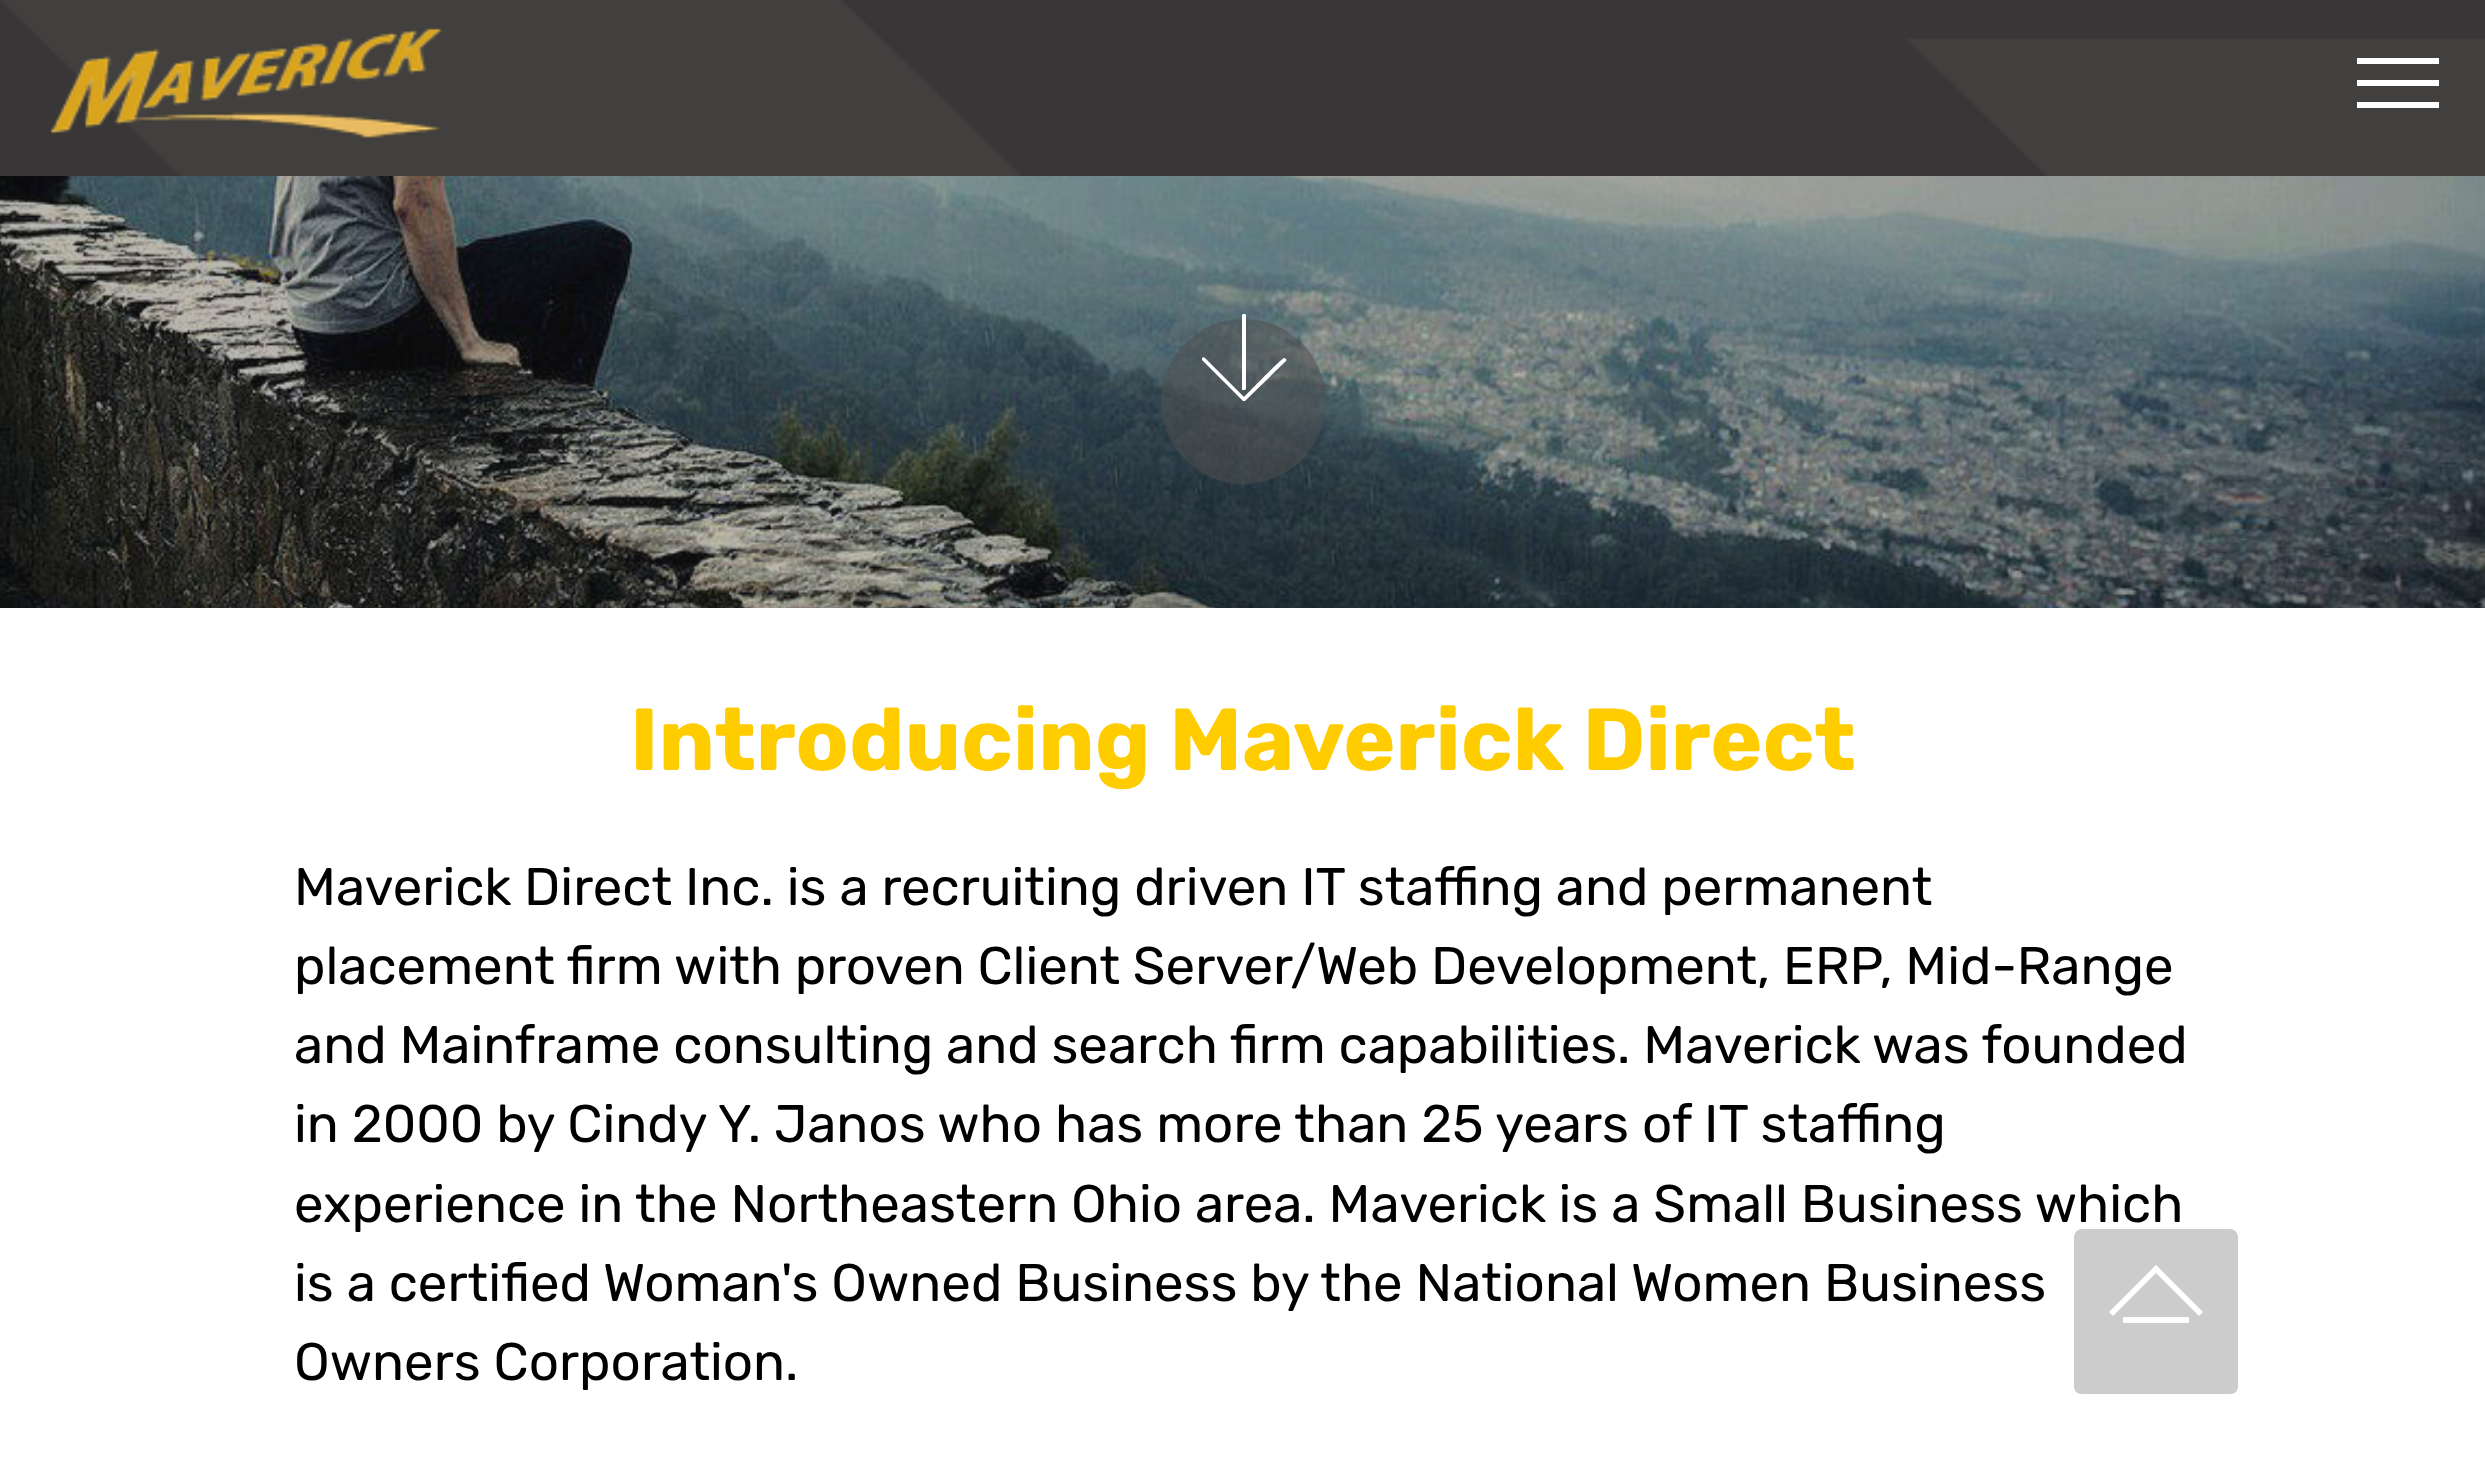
<svg xmlns="http://www.w3.org/2000/svg" width="2485" height="1461">
<style>
.a{font:bold 88px Rubik;fill:#fc0}
.b{font:52.8px Rubik;fill:#000}
</style>
<rect width="100%" height="100%" fill="#fff"/>
<path fill="#383636" d="M0 0h2485v176H0z"/>
<image href="1.png" x="0" y="0" width="2485" height="176"/>
<image href="2.png" x="50" y="28" width="393" height="110"/>
<path fill="#fff" d="M2357 58h82v6H2357z"/>
<path fill="#fff" d="M2357 80h82v6H2357z"/>
<path fill="#fff" d="M2357 102h82v6H2357z"/>
<image href="3.png" x="0" y="176" width="2485" height="432"/>
<circle fill="#50505080" cx="1243.5" cy="401.5" r="82.5"/>
<path fill="#fff" d="M1284 358c-2 0-36 35-40 39l-39-39c-1-1-2-1-3 0c0 1 0 1 0 2l41 41h2l41-40c1-1 0-3-2-3zm-40-44c1 0 2 0 2 1v74c-1 1-1 1-2 1h-2c0-1 0-56 0-62v-13l1-1z"/>
<text class="a" x="630" y="770">Introducing Maverick Direct</text>
<text class="b" x="294" y="905">Maverick Direct Inc. is a recruiting driven IT staffing and permanent</text>
<text class="b" x="294" y="984" word-spacing="-0.25">placement firm with proven Client Server/Web Development, ERP, Mid-Range</text>
<text class="b" x="294" y="1063" word-spacing="-0.1">and Mainframe consulting and search firm capabilities. Maverick was founded</text>
<text class="b" x="294" y="1142">in 2000 by Cindy Y. Janos who has more than 25 years of IT staffing</text>
<text class="b" x="294" y="1222">experience in the Northeastern Ohio area. Maverick is a Small Business which</text>
<text class="b" x="294" y="1301">is a certified Woman's Owned Business by the National Women Business</text>
<text class="b" x="294" y="1380">Owners Corporation.</text>
<path fill="#ccc" d="M2230 1394h-148c-5 0-8-3-8-8v-148c0-5 3-9 8-9h148c5 0 8 4 8 9v148c0 5-3 8-8 8z"/>
<path fill="#fff" d="M2109 1312l47-47l4 4l-47 47z"/>
<path fill="#fff" d="M2152 1269l4-4l47 47l-4 4z"/>
<path fill="#fff" d="M2123 1317h66v6H2123z"/>
</svg>
